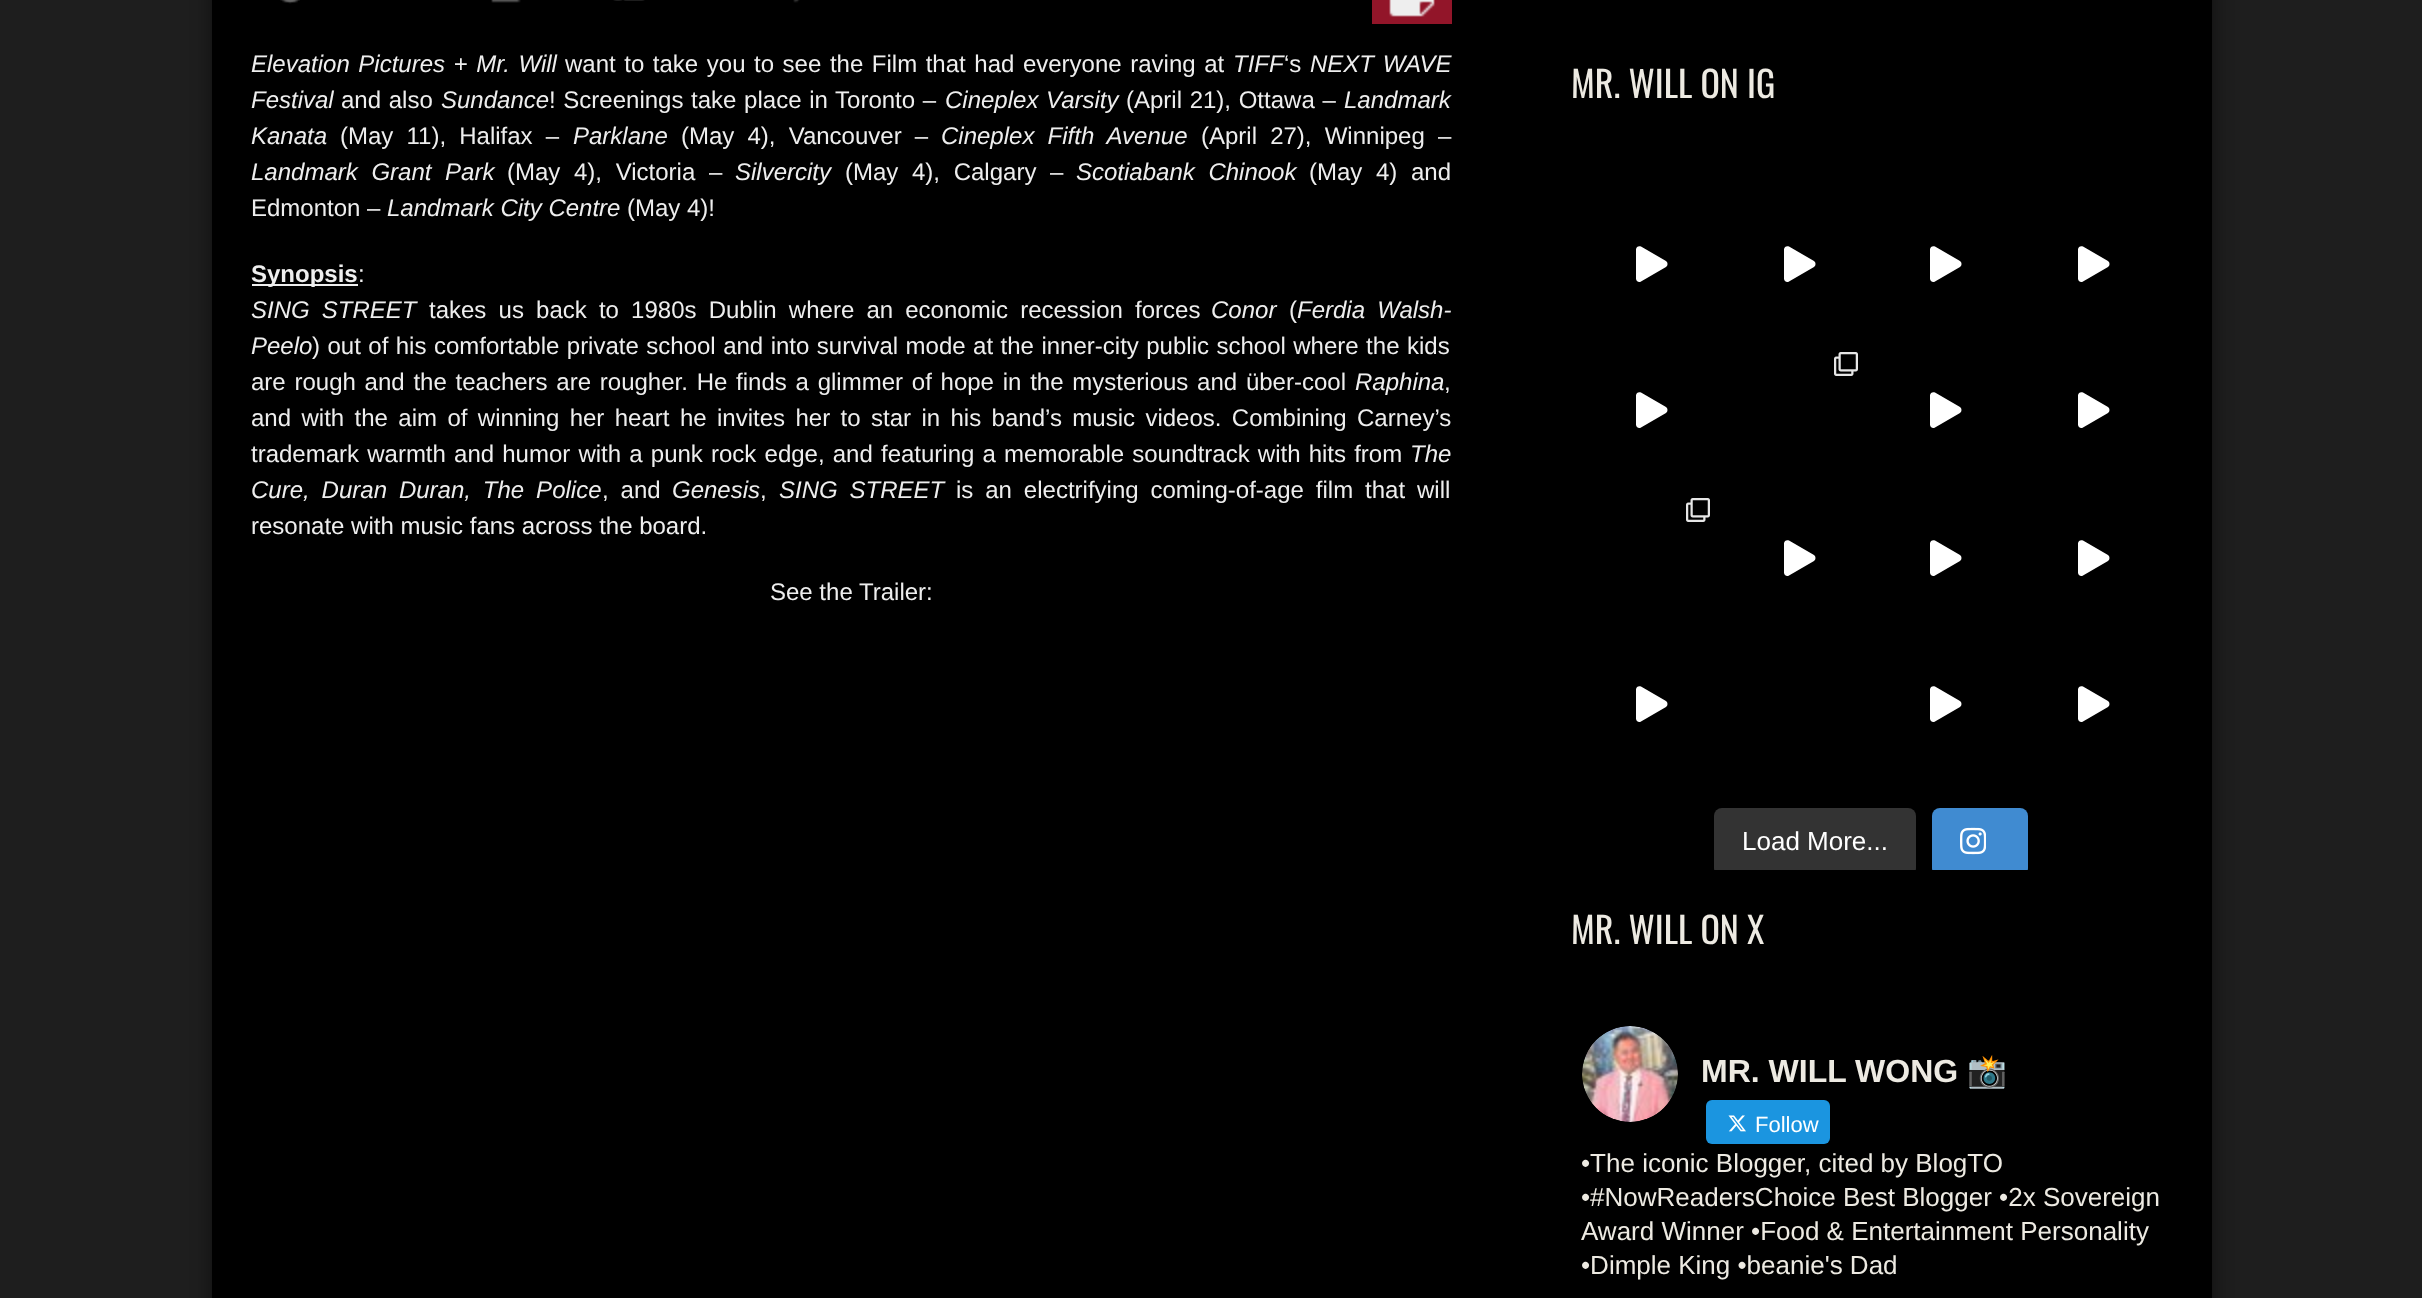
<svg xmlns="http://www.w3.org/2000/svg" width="2422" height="1298">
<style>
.a{font:italic 24px Liberation Sans;fill:#eee}
.b{font:24px Liberation Sans;fill:#eee}
.c{font:bold 24px Liberation Sans;fill:#eee}
.d{font:36px Oswald;fill:#edeae2}
.e{font:26px Liberation Sans;fill:#fff}
.f{font:bold 32px Liberation Sans;fill:#edeae2}
.g{font:bold 32px Noto Color Emoji;fill:#edeae2}
.h{font:22px Liberation Sans;fill:#fff}
.i{font:26px Liberation Sans;fill:#edeae2}
</style>
<defs>
<clipPath id="clip1"><path d="M1582 170h580v700H1582z"/></clipPath>
</defs>
<rect width="100%" height="100%" fill="#1e1e1e"/>
<path fill="#00000080" filter="blur(10px)" d="M212 -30h2000v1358H212z"/>
<path fill="#000" d="M212 0h2000v1298H212z"/>
<image href="1.png" x="280" y="0" width="20" height="4"/>
<image href="2.png" x="491" y="0" width="30" height="3"/>
<image href="3.png" x="613" y="0" width="32" height="1"/>
<image href="4.png" x="793" y="0" width="7" height="3"/>
<path fill="#921529" d="M1372 0h80v24H1372z"/>
<image href="5.png" x="1389" y="0" width="46" height="17"/>
<path fill="#eee" d="M252 284h106v2H252z"/>
<path fill="#fff" d="M1666 261l-25-14.5c-2-1-5 0-5 3v29c0 3 3 4.5 5 3l25-14.5c2-1.5 2-4.5 0-6z"/>
<path fill="#fff" d="M1814 261l-25-14.5c-2-1-5 0-5 3v29c0 3 3 4.5 5 3l25-14.5c2-1.5 2-4.5 0-6z"/>
<path fill="#fff" d="M1960 261l-25-14.5c-2-1-5 0-5 3v29c0 3 3 4.5 5 3l25-14.5c2-1.5 2-4.5 0-6z"/>
<path fill="#fff" d="M2108 261l-25-14.5c-2-1-5 0-5 3v29c0 3 3 4.5 5 3l25-14.5c2-1.5 2-4.5 0-6z"/>
<image href="6.png" x="1834" y="352" width="24" height="24"/>
<path fill="#fff" d="M1666 407l-25-14.5c-2-1-5 0-5 3v29c0 3 3 4.5 5 3l25-14.5c2-1.5 2-4.5 0-6z"/>
<path fill="#fff" d="M1960 407l-25-14.5c-2-1-5 0-5 3v29c0 3 3 4.5 5 3l25-14.5c2-1.5 2-4.5 0-6z"/>
<path fill="#fff" d="M2108 407l-25-14.5c-2-1-5 0-5 3v29c0 3 3 4.5 5 3l25-14.5c2-1.5 2-4.5 0-6z"/>
<image href="6.png" x="1686" y="498" width="24" height="24"/>
<path fill="#fff" d="M1814 555l-25-14.5c-2-1-5 0-5 3v29c0 3 3 4.5 5 3l25-14.5c2-1.5 2-4.5 0-6z"/>
<path fill="#fff" d="M1960 555l-25-14.5c-2-1-5 0-5 3v29c0 3 3 4.5 5 3l25-14.5c2-1.5 2-4.5 0-6z"/>
<path fill="#fff" d="M2108 555l-25-14.5c-2-1-5 0-5 3v29c0 3 3 4.5 5 3l25-14.5c2-1.5 2-4.5 0-6z"/>
<path fill="#fff" d="M1666 701l-25-14.5c-2-1-5 0-5 3v29c0 3 3 4.5 5 3l25-14.5c2-1.5 2-4.5 0-6z"/>
<path fill="#fff" d="M1960 701l-25-14.5c-2-1-5 0-5 3v29c0 3 3 4.5 5 3l25-14.5c2-1.5 2-4.5 0-6z"/>
<path fill="#fff" d="M2108 701l-25-14.5c-2-1-5 0-5 3v29c0 3 3 4.5 5 3l25-14.5c2-1.5 2-4.5 0-6z"/>
<g clip-path="url(#clip1)">
<rect fill="#333" x="1714" y="808" width="202" height="68" rx="8"/>
<rect fill="#408bd1" x="1932" y="808" width="96" height="68" rx="8"/>
</g>
<image href="7.png" x="1960" y="827" width="26" height="28"/>
<image href="8.png" x="1582" y="1026" width="96" height="96"/>
<rect fill="#1b95e0" x="1706" y="1100" width="124" height="44" rx="6"/>
<image href="9.png" x="1728" y="1115" width="18" height="17"/>
<text class="a" x="251" y="72" word-spacing="1.9">Elevation Pictures + Mr. Will</text>
<text class="b" x="565" y="72" word-spacing="1.9">want to take you to see the Film that had everyone raving at</text>
<text class="a" x="1233" y="72">TIFF</text>
<text class="b" x="1284" y="72">‘s</text>
<text class="a" x="1310" y="72" word-spacing="2">NEXT WAVE</text>
<text class="a" x="251" y="108">Festival</text>
<text class="b" x="341" y="108" word-spacing="1">and also</text>
<text class="a" x="441" y="108">Sundance</text>
<text class="b" x="549" y="108" word-spacing="1">! Screenings take place in Toronto –</text>
<text class="a" x="945" y="108" word-spacing="1">Cineplex Varsity</text>
<text class="b" x="1126" y="108" word-spacing="1">(April 21), Ottawa –</text>
<text class="a" x="1344" y="108">Landmark</text>
<text class="a" x="251" y="144">Kanata</text>
<text class="b" x="340" y="144" word-spacing="6.5">(May 11), Halifax –</text>
<text class="a" x="573" y="144">Parklane</text>
<text class="b" x="681" y="144" word-spacing="6.5">(May 4), Vancouver –</text>
<text class="a" x="941" y="144" word-spacing="6.5">Cineplex Fifth Avenue</text>
<text class="b" x="1201" y="144" word-spacing="6.5">(April 27), Winnipeg –</text>
<text class="a" x="251" y="180" word-spacing="7">Landmark Grant Park</text>
<text class="b" x="507" y="180" word-spacing="7">(May 4), Victoria –</text>
<text class="a" x="735" y="180">Silvercity</text>
<text class="b" x="845" y="180" word-spacing="7">(May 4), Calgary –</text>
<text class="a" x="1076" y="180" word-spacing="7">Scotiabank Chinook</text>
<text class="b" x="1309" y="180" word-spacing="7">(May 4) and</text>
<text class="b" x="251" y="216">Edmonton –</text>
<text class="a" x="387" y="216">Landmark City Centre</text>
<text class="b" x="627" y="216">(May 4)!</text>
<text class="c" x="251" y="282">Synopsis</text>
<text class="b" x="358" y="282">:</text>
<text class="a" x="251" y="318" word-spacing="5.5">SING STREET</text>
<text class="b" x="429" y="318" word-spacing="5.5">takes us back to 1980s Dublin where an economic recession forces</text>
<text class="a" x="1211" y="318">Conor</text>
<text class="b" x="1289" y="318">(</text>
<text class="a" x="1297" y="318" word-spacing="5.5">Ferdia Walsh-</text>
<text class="a" x="251" y="354">Peelo</text>
<text class="b" x="312" y="354" word-spacing="0.8">) out of his comfortable private school and into survival mode at the inner-city public school where the kids</text>
<text class="b" x="251" y="390" word-spacing="2.1">are rough and the teachers are rougher. He finds a glimmer of hope in the mysterious and über-cool</text>
<text class="a" x="1355" y="390">Raphina</text>
<text class="b" x="1444" y="390">,</text>
<text class="b" x="251" y="426" word-spacing="3.75">and with the aim of winning her heart he invites her to star in his band’s music videos. Combining Carney’s</text>
<text class="b" x="251" y="462" word-spacing="1.5">trademark warmth and humor with a punk rock edge, and featuring a memorable soundtrack with hits from</text>
<text class="a" x="1410" y="462">The</text>
<text class="a" x="251" y="498" word-spacing="5.25">Cure, Duran Duran, The Police</text>
<text class="b" x="602" y="498" word-spacing="5.25">, and</text>
<text class="a" x="672" y="498">Genesis</text>
<text class="b" x="760" y="498">,</text>
<text class="a" x="779" y="498" word-spacing="5.25">SING STREET</text>
<text class="b" x="956" y="498" word-spacing="5.25">is an electrifying coming-of-age film that will</text>
<text class="b" x="251" y="534">resonate with music fans across the board.</text>
<text class="b" x="770" y="600">See the Trailer:</text>
<text class="d" x="1571" y="98">MR. WILL ON IG</text>
<text class="e" x="1742" y="850">Load More...</text>
<text class="d" x="1571" y="944">MR. WILL ON X</text>
<text class="f" x="1701" y="1082">MR. WILL WONG</text>
<text class="g" x="1967" y="1082">📸</text>
<text class="h" x="1755" y="1132">Follow</text>
<text class="i" x="1581" y="1172">•The iconic Blogger, cited by BlogTO</text>
<text class="i" x="1581" y="1206">•#NowReadersChoice Best Blogger •2x Sovereign</text>
<text class="i" x="1581" y="1240">Award Winner •Food &amp; Entertainment Personality</text>
<text class="i" x="1581" y="1274">•Dimple King •beanie's Dad</text>
</svg>
